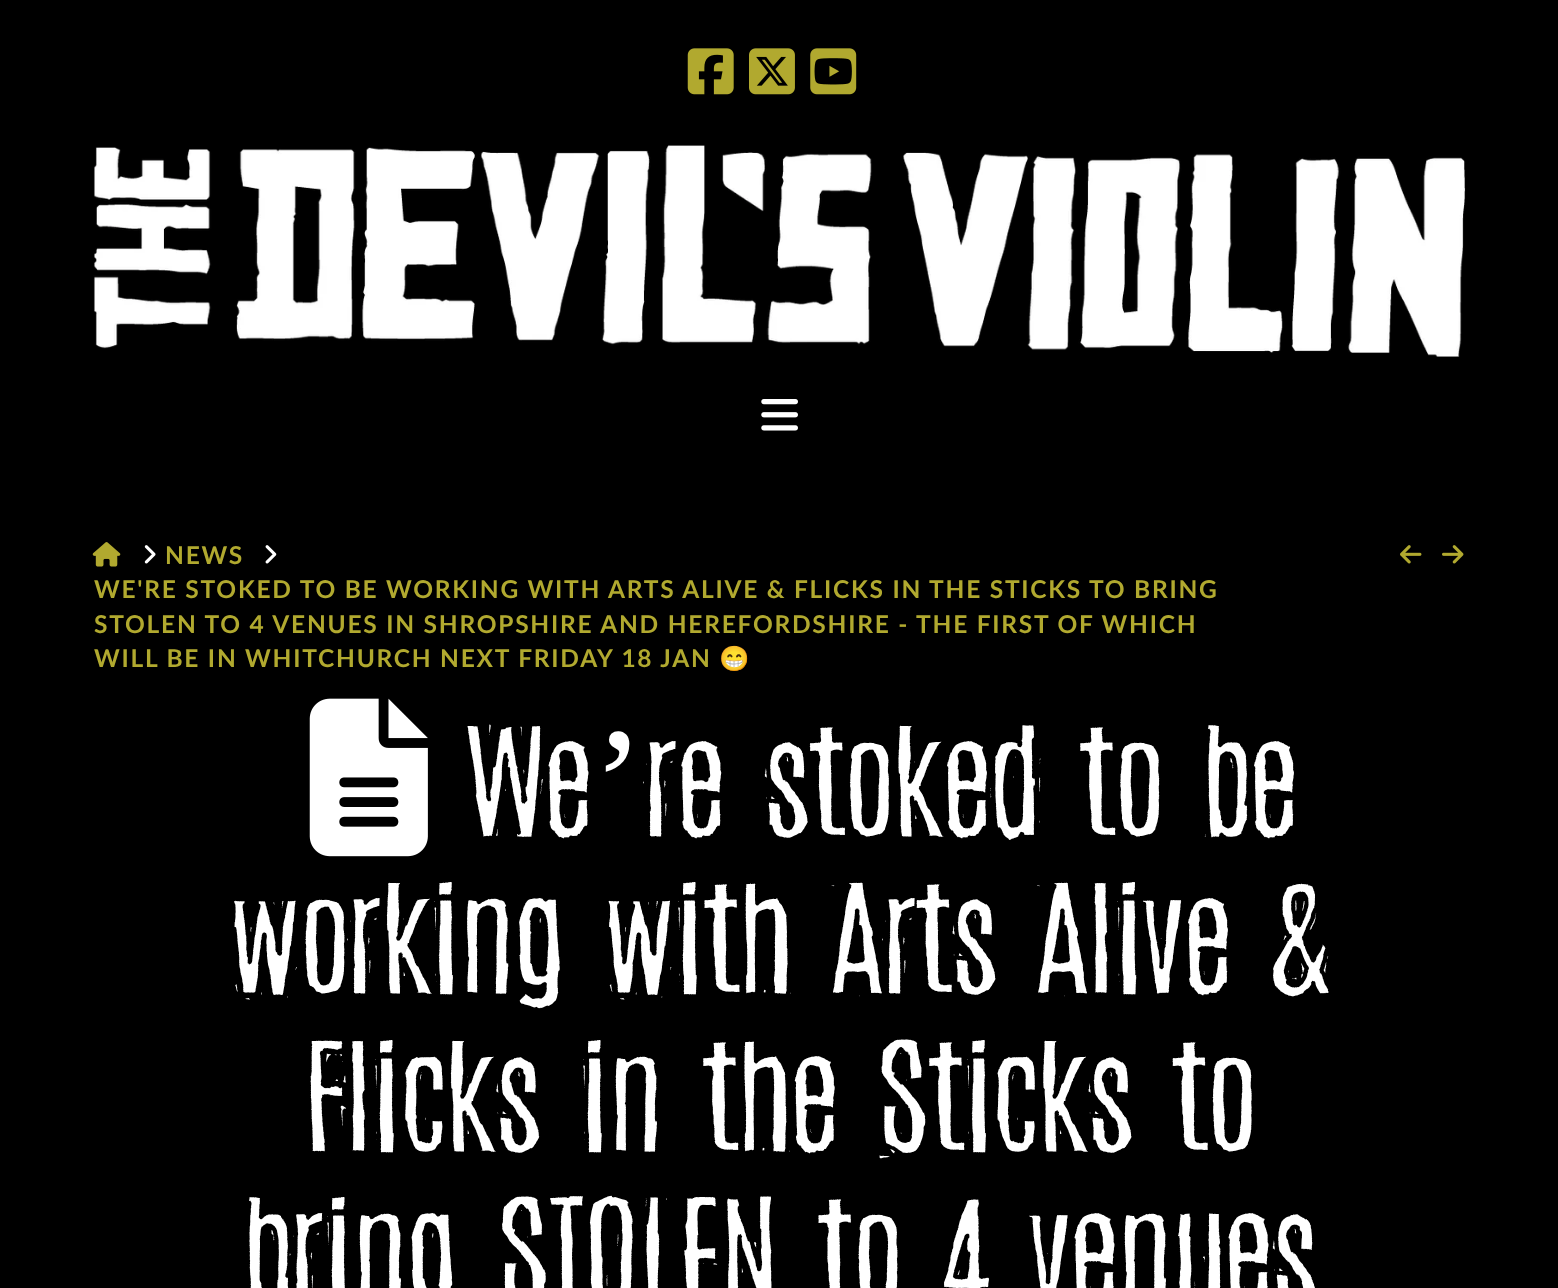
<svg xmlns="http://www.w3.org/2000/svg" width="1558" height="1288">
<style>
.a{font:bold 24.5px Lato;letter-spacing:1.75px;fill:#b1a92f}
.b{font:bold 24.5px Noto Color Emoji;letter-spacing:1.75px;fill:#b1a92f}
.c{font:157.5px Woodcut;fill:#fff}
.d{font:157.5px Liberation Serif;fill:#fff}
</style>
<rect width="100%" height="100%" fill="#000"/>
<image href="1.png" x="687" y="48" width="47" height="47"/>
<image href="2.png" x="749" y="48" width="46" height="47"/>
<image href="3.png" x="810" y="48" width="47" height="47"/>
<image href="4.png" x="93" y="145" width="1373" height="212"/>
<image href="5.png" x="761" y="399" width="37" height="32"/>
<image href="6.png" x="92" y="542" width="29" height="25"/>
<image href="7.png" x="144" y="545" width="12" height="19"/>
<image href="8.png" x="265" y="545" width="12" height="19"/>
<image href="9.png" x="1400" y="545" width="22" height="19"/>
<image href="10.png" x="1442" y="545" width="22" height="19"/>
<image href="11.png" x="309" y="698" width="119" height="159"/>
<text class="a" x="165" y="564">NEWS</text>
<text class="a" x="94" y="598">WE'RE STOKED TO BE WORKING WITH ARTS ALIVE &amp; FLICKS IN THE STICKS TO BRING</text>
<text class="a" x="94" y="633">STOLEN TO 4 VENUES IN SHROPSHIRE AND HEREFORDSHIRE - THE FIRST OF WHICH</text>
<text class="a" x="94" y="667">WILL BE IN WHITCHURCH NEXT FRIDAY 18 JAN</text>
<text class="b" x="719" y="667">😁</text>
<text class="c" x="466" y="836">We</text>
<text class="d" x="592" y="836">’</text>
<text class="c" x="644" y="836">re stoked to be</text>
<text class="c" x="230" y="993">working with Arts Alive &amp;</text>
<text class="c" x="304" y="1151">Flicks in the Sticks to</text>
<text class="c" x="243" y="1308">bring STOLEN to 4 venues</text>
</svg>
